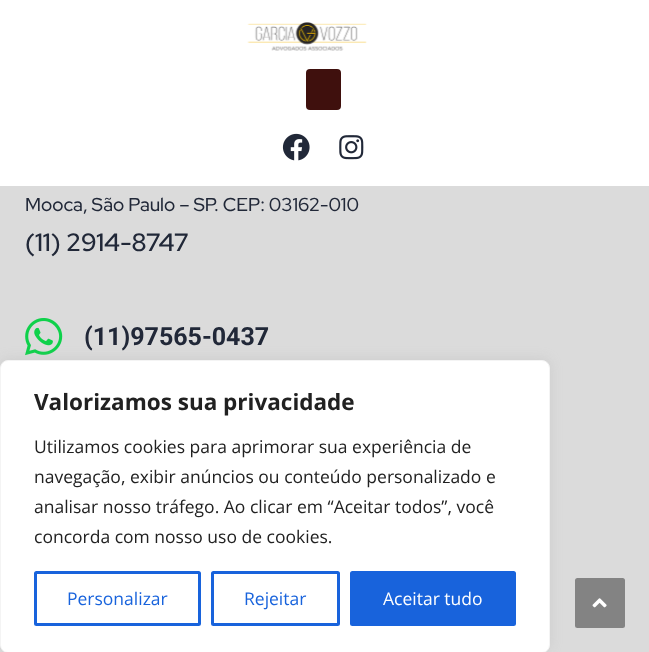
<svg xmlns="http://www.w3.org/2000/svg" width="649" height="652">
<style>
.a{font:500 18.75px Red Hat Display;fill:#212838}
.b{font:600 25px Red Hat Display;fill:#212838}
.c{font:bold 25px Roboto;fill:#212838}
.d{font:bold 22.5px Open Sans;fill:#212121}
.e{font:17.5px Open Sans;fill:#212121}
.f{font:17.5px Open Sans;fill:#1863dc}
.g{font:17.5px Open Sans;fill:#fff}
</style>
<rect width="100%" height="100%" fill="#dbdbdb"/>
<path fill="#fff" d="M0 0h649v186H0z"/>
<image href="1.png" x="247" y="22" width="120" height="29"/>
<rect fill="#3f100d" x="306" y="69" width="35" height="41" rx="4"/>
<image href="2.png" x="282" y="133" width="28" height="28"/>
<image href="3.png" x="339" y="135" width="25" height="25"/>
<image href="4.png" x="25" y="318" width="38" height="38"/>
<rect fill="#acabab4d" filter="blur(6px)" y="359" width="550" height="292" rx="8"/>
<rect fill="#fff" stroke="#f4f4f4" x="0.5" y="360.5" width="549" height="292" rx="7.5"/>
<rect fill="none" stroke="#1863dc" stroke-width="3" x="35.5" y="572.5" width="164" height="52" rx="1"/>
<rect fill="none" stroke="#1863dc" stroke-width="3" x="212.5" y="572.5" width="126" height="52" rx="1"/>
<rect fill="#1863dc" stroke="#1863dc" stroke-width="3" x="351.5" y="572.5" width="163" height="52" rx="1"/>
<rect fill="#838383" x="575" y="578" width="50" height="50" rx="2.5"/>
<image href="5.png" x="592" y="598" width="15" height="10"/>
<text class="a" x="25" y="211">Mooca, São Paulo – SP. CEP: 03162-010</text>
<text class="b" x="25" y="251">(11) 2914-8747</text>
<text class="c" x="84" y="345">(11)97565-0437</text>
<text class="d" x="34" y="410">Valorizamos sua privacidade</text>
<text class="e" x="34" y="453">Utilizamos cookies para aprimorar sua experiência de</text>
<text class="e" x="34" y="483">navegação, exibir anúncios ou conteúdo personalizado e</text>
<text class="e" x="34" y="513">analisar nosso tráfego. Ao clicar em “Aceitar todos”, você</text>
<text class="e" x="34" y="543">concorda com nosso uso de cookies.</text>
<text class="f" x="67" y="605">Personalizar</text>
<text class="f" x="244" y="605">Rejeitar</text>
<text class="g" x="383" y="605">Aceitar tudo</text>
</svg>
